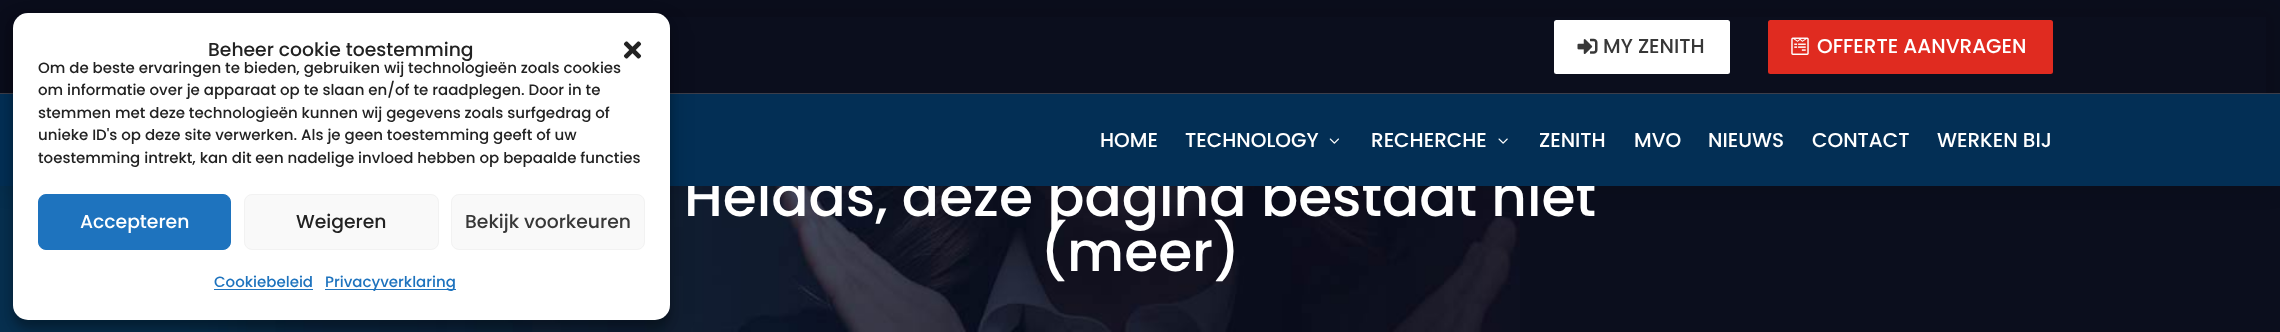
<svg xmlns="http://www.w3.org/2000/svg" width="2280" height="332">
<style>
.a{font:500 20px Poppins;fill:#383838}
.b{font:500 20px Poppins;fill:#fff}
.c{font:500 55px Poppins;fill:#fff}
.d{font:500 15px Poppins;fill:#222}
.e{font:500 15px Poppins;fill:#1e73be}
.f{font:500 18.75px Poppins;fill:#383838}
.g{font:500 18.75px Poppins;fill:#222}
.h{font:500 18.75px Poppins;fill:#fff}
</style>
<rect width="100%" height="100%" fill="#0b0e1d"/>
<image href="6.png" x="0" y="186" width="1520" height="146"/>
<path fill="#0000001a" filter="blur(11px)" d="M0 3h2280v186H0z"/>
<path fill="#0b0e1d" d="M14 17h2252v76H14z"/>
<path fill="#3c3e4a" d="M0 93h2280v1H0z"/>
<rect fill="#fff" x="1554" y="20" width="176" height="54" rx="2.5"/>
<image href="2.png" x="1577" y="38" width="21" height="16"/>
<rect fill="#e02b20" x="1768" y="20" width="285" height="54" rx="2.5"/>
<image href="3.png" x="1791" y="37" width="18" height="18"/>
<text class="a" x="1603" y="53">MY ZENITH</text>
<text class="b" x="1817" y="53">OFFERTE AANVRAGEN</text>
<text class="c" x="684" y="216">Helaas, deze pagina bestaat niet</text>
<path fill="#032f55" d="M0 94h2280v92H0z"/>
<rect fill="#00000030" filter="blur(12.5px)" x="13" y="25" width="657" height="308" rx="15"/>
<rect fill="#0000003b" filter="blur(4px)" x="13" y="20" width="657" height="308" rx="15"/>
<rect fill="#fff" x="13" y="13" width="657" height="307" rx="15"/>
<text class="d" x="38" y="163">toestemming intrekt, kan dit een nadelige invloed hebben op bepaalde functies</text>
<text class="d" x="38" y="140">unieke ID's op deze site verwerken. Als je geen toestemming geeft of uw</text>
<text class="d" x="38" y="118">stemmen met deze technologieën kunnen wij gegevens zoals surfgedrag of</text>
<text class="d" x="38" y="95">om informatie over je apparaat op te slaan en/of te raadplegen. Door in te</text>
<text class="d" x="38" y="73">Om de beste ervaringen te bieden, gebruiken wij technologieën zoals cookies</text>
<image href="1.png" x="623" y="41" width="19" height="18"/>
<path fill="#1e73be" d="M325 289h131v1H325z"/>
<text class="e" x="325" y="287">Privacyverklaring</text>
<text class="e" x="214" y="287">Cookiebeleid</text>
<path fill="#1e73be" d="M214 289h99v1H214z"/>
<rect fill="#f9f9f9" stroke="#f2f2f2" x="451.5" y="194.5" width="193" height="55" rx="7.5"/>
<text class="f" x="465" y="228">Bekijk voorkeuren</text>
<rect fill="#f9f9f9" stroke="#f2f2f2" x="244.5" y="194.5" width="194" height="55" rx="7.5"/>
<text class="g" x="296" y="228">Weigeren</text>
<rect fill="#1e73be" stroke="#1e73be" x="38.5" y="194.5" width="192" height="55" rx="7.5"/>
<text class="h" x="80" y="228">Accepteren</text>
<text class="g" x="208" y="56">Beheer cookie toestemming</text>
<text class="b" x="1937" y="147">WERKEN BIJ</text>
<text class="b" x="1812" y="147">CONTACT</text>
<text class="b" x="1708" y="147">NIEUWS</text>
<text class="b" x="1634" y="147">MVO</text>
<text class="b" x="1539" y="147">ZENITH</text>
<image href="5.png" x="1498" y="138" width="10" height="6"/>
<text class="b" x="1371" y="147">RECHERCHE</text>
<image href="4.png" x="1329" y="138" width="10" height="6"/>
<text class="b" x="1185" y="147">TECHNOLOGY</text>
<text class="b" x="1100" y="147">HOME</text>
<text class="c" x="1040" y="271">(meer)</text>
</svg>
